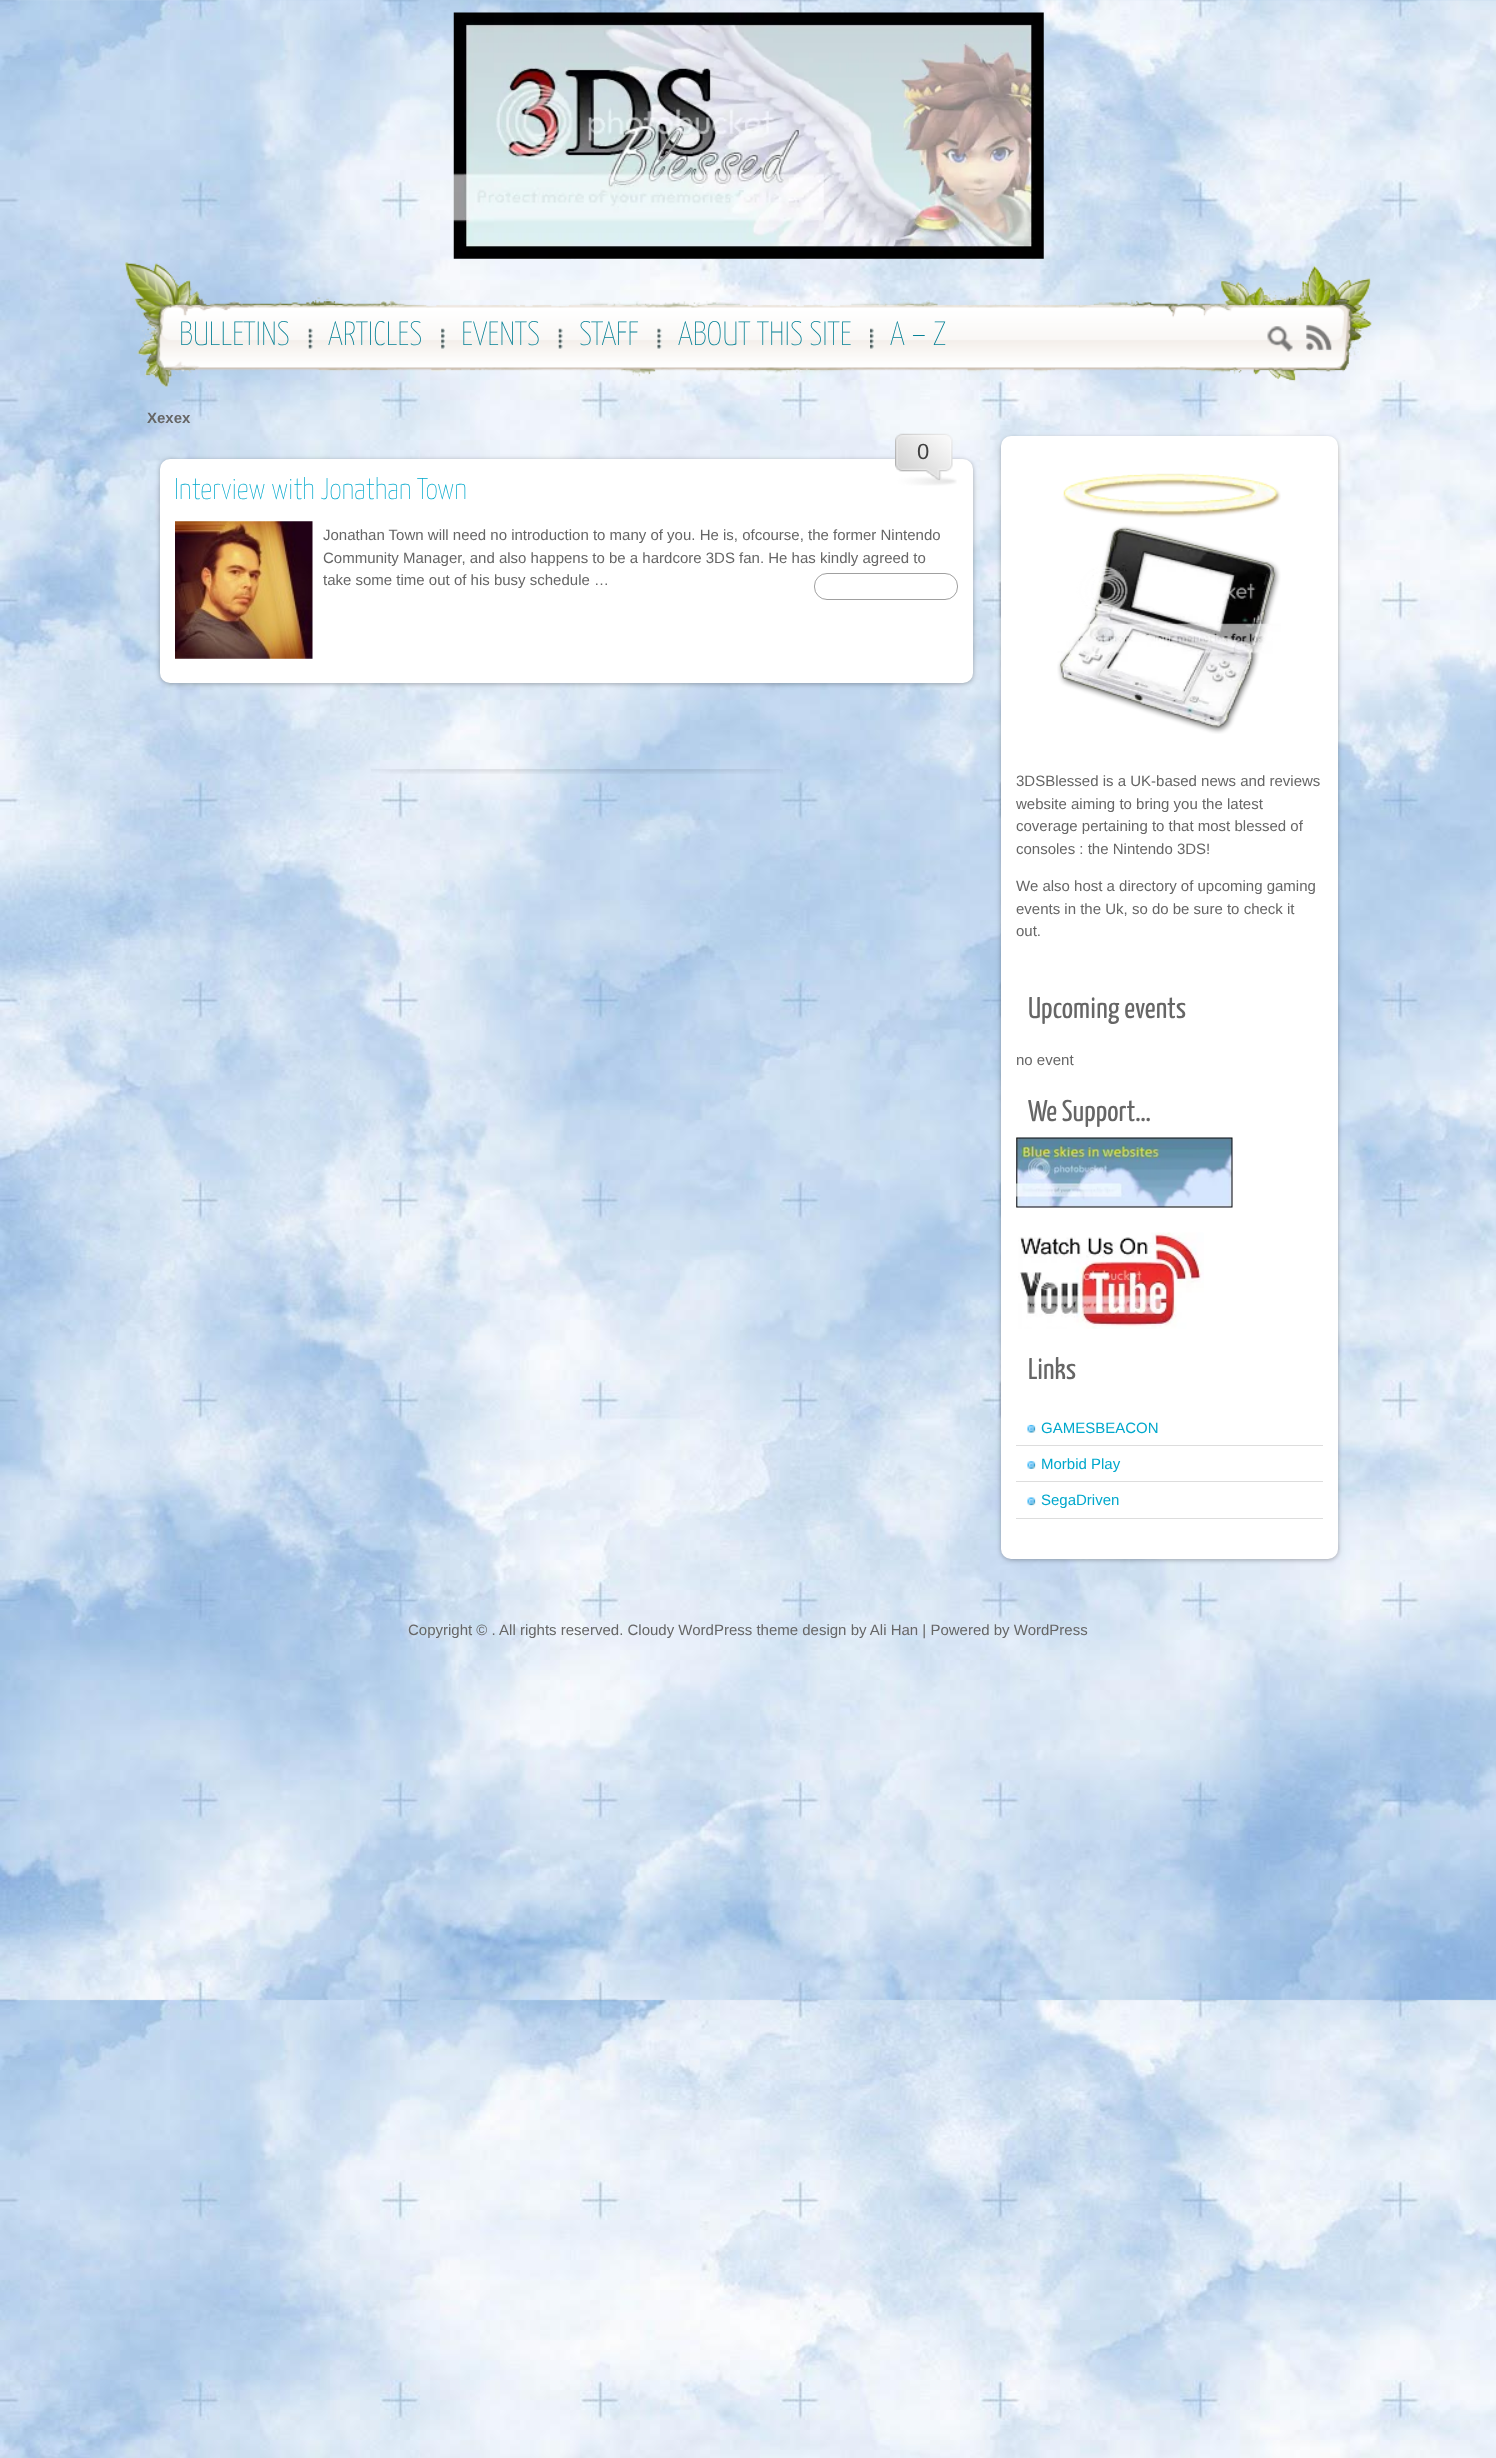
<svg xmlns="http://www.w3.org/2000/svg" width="1496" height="2458">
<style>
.a{font:200 33.75px Yanone Kaffeesatz;fill:#078196}
.b{font:bold 15px Liberation Sans;fill:#666}
.c{font:22px Liberation Sans;fill:#3f3f3f}
.d{font:200 30px Yanone Kaffeesatz;fill:#00a8cc}
.e{font:15px Liberation Sans;fill:#666}
.f{font:30px Yanone Kaffeesatz;fill:#666}
.g{font:15px Liberation Sans;fill:#00a8cc}
</style>
<rect width="100%" height="100%" fill="#fff"/>
<image href="1.png" x="0" y="0" width="1496" height="2458"/>
<image href="2.png" x="453" y="12" width="591" height="247"/>
<image href="3.png" x="125" y="262" width="1247" height="126"/>
<image href="4.png" x="308" y="328" width="5" height="21"/>
<image href="5.png" x="441" y="328" width="4" height="21"/>
<image href="4.png" x="558" y="328" width="5" height="21"/>
<image href="6.png" x="657" y="328" width="5" height="21"/>
<image href="7.png" x="870" y="328" width="4" height="21"/>
<image href="8.png" x="1267" y="326" width="26" height="26"/>
<image href="9.png" x="1306" y="324" width="26" height="27"/>
<rect fill="#0000004d" filter="blur(2.5px)" x="160" y="460" width="813" height="224" rx="10"/>
<rect fill="#fff" x="160" y="459" width="813" height="224" rx="10"/>
<image href="10.png" x="895" y="433" width="62" height="53"/>
<image href="11.png" x="175" y="521" width="138" height="138"/>
<rect fill="none" stroke="#a0a0a0" x="814.5" y="573.5" width="143" height="26" rx="12.5"/>
<image href="12.png" x="371" y="769" width="412" height="5"/>
<rect fill="#0000004d" filter="blur(2.5px)" x="1001" y="438" width="337" height="1122" rx="10"/>
<rect fill="#fff" x="1001" y="436" width="337" height="1123" rx="10"/>
<image href="13.png" x="1057" y="473" width="224" height="261"/>
<image href="14.png" x="1016" y="1137" width="217" height="71"/>
<image href="15.png" x="1018" y="1232" width="186" height="97"/>
<image href="16.png" x="1027" y="1424" width="9" height="9"/>
<path fill="#ddd" d="M1016 1445h307v1H1016z"/>
<image href="17.png" x="1027" y="1461" width="9" height="8"/>
<path fill="#ddd" d="M1016 1481h307v1H1016z"/>
<image href="18.png" x="1027" y="1497" width="9" height="9"/>
<path fill="#ddd" d="M1016 1518h307v1H1016z"/>
<text class="a" x="179" y="345">BULLETINS</text>
<text class="a" x="328" y="345">ARTICLES</text>
<text class="a" x="461" y="345">EVENTS</text>
<text class="a" x="579" y="345">STAFF</text>
<text class="a" x="678" y="345">ABOUT THIS SITE</text>
<text class="a" x="890" y="345">A – Z</text>
<text class="b" x="147" y="423">Xexex</text>
<text class="c" x="917" y="459">0</text>
<text class="d" x="174" y="499">Interview with Jonathan Town</text>
<text class="e" x="323" y="540">Jonathan Town will need no introduction to many of you. He is, ofcourse, the former Nintendo</text>
<text class="e" x="323" y="563">Community Manager, and also happens to be a hardcore 3DS fan. He has kindly agreed to</text>
<text class="e" x="323" y="585">take some time out of his busy schedule …</text>
<text class="e" x="1016" y="786">3DSBlessed is a UK-based news and reviews</text>
<text class="e" x="1016" y="809">website aiming to bring you the latest</text>
<text class="e" x="1016" y="831">coverage pertaining to that most blessed of</text>
<text class="e" x="1016" y="854">consoles : the Nintendo 3DS!</text>
<text class="e" x="1016" y="891">We also host a directory of upcoming gaming</text>
<text class="e" x="1016" y="914">events in the Uk, so do be sure to check it</text>
<text class="e" x="1016" y="936">out.</text>
<text class="f" x="1028" y="1018">Upcoming events</text>
<text class="e" x="1016" y="1065">no event</text>
<text class="f" x="1028" y="1121">We Support…</text>
<text class="f" x="1028" y="1379">Links</text>
<text class="g" x="1041" y="1433">GAMESBEACON</text>
<text class="g" x="1041" y="1469">Morbid Play</text>
<text class="g" x="1041" y="1505">SegaDriven</text>
<text class="e" x="408" y="1635">Copyright © . All rights reserved. Cloudy WordPress theme design by Ali Han | Powered by WordPress</text>
</svg>
